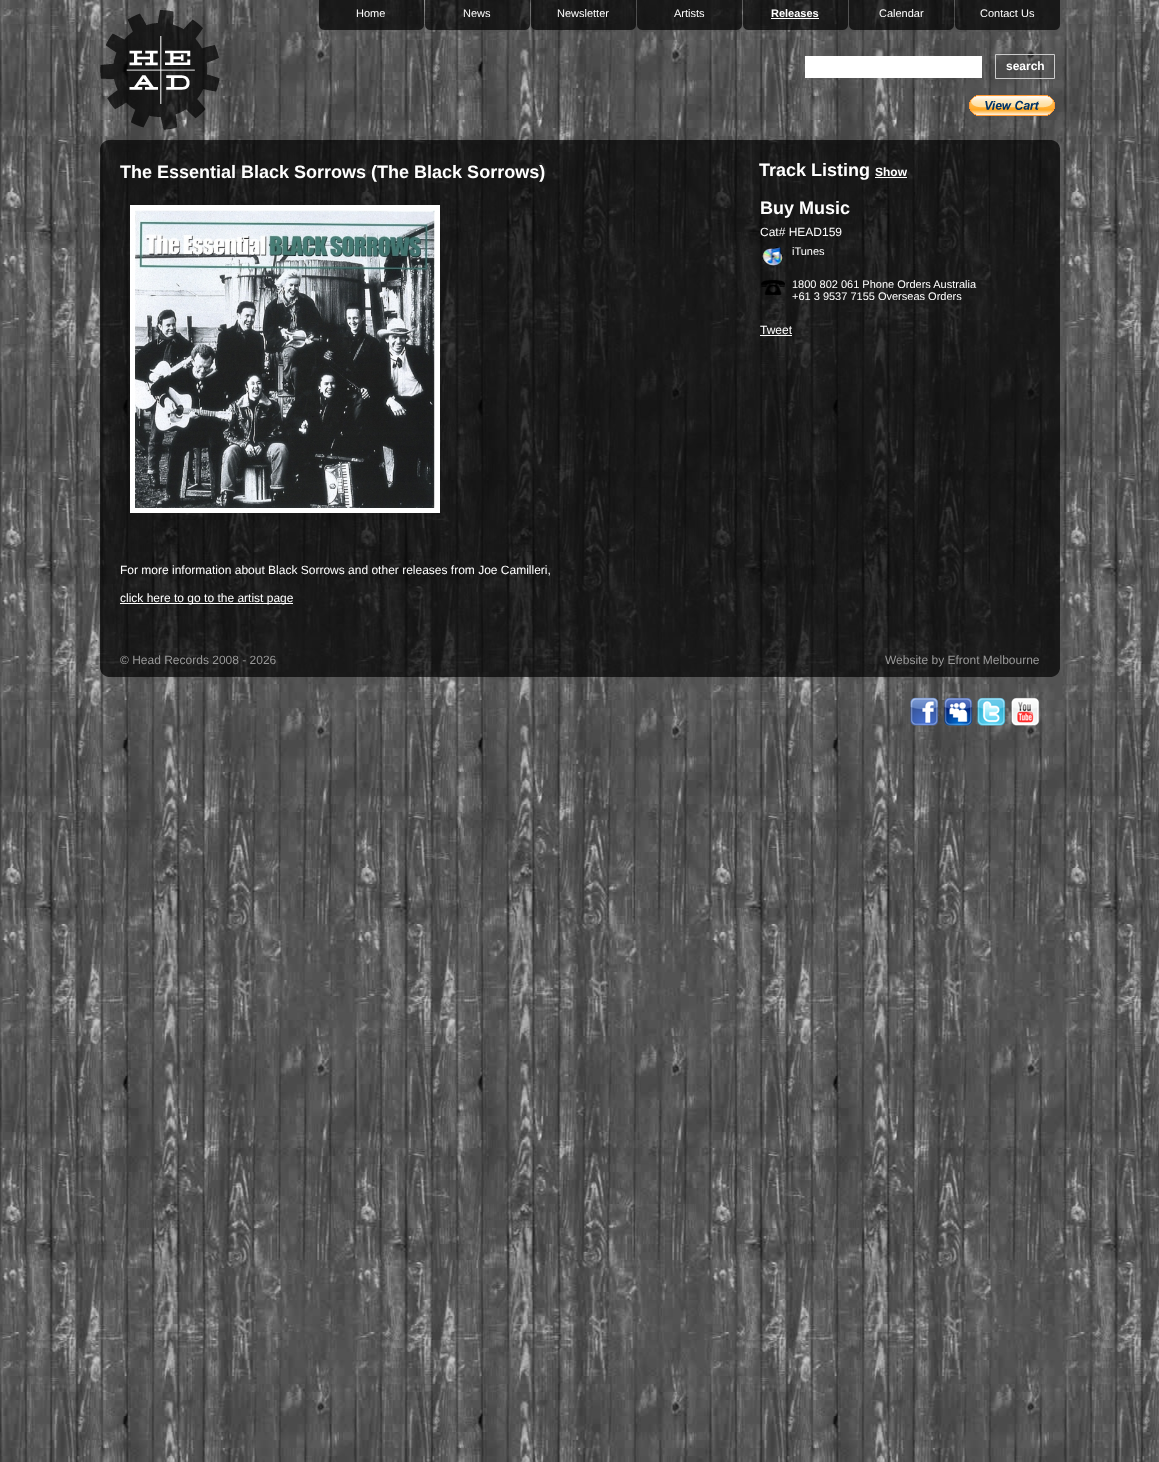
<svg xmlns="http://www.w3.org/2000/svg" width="1159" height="1462">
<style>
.a{font:11px Liberation Sans;fill:#fff}
.b{font:bold 11px Liberation Sans;fill:#fff}
.c{font:bold 12px Liberation Sans;fill:#fff}
.d{font:bold 18px Liberation Sans;fill:#fff}
.e{font:12px Liberation Sans;fill:#fff}
.f{font:12px Liberation Sans;fill:#999}
</style>
<rect width="100%" height="100%" fill="#fff"/>
<image href="1.png" x="0" y="0" width="1159" height="1462"/>
<image href="2.png" x="100" y="10" width="120" height="120"/>
<image href="3.png" x="319" y="0" width="105" height="30"/>
<image href="4.png" x="425" y="0" width="105" height="30"/>
<image href="5.png" x="531" y="0" width="105" height="30"/>
<image href="6.png" x="637" y="0" width="105" height="30"/>
<image href="7.png" x="743" y="0" width="105" height="30"/>
<path fill="#fff" d="M771 18h48v1H771z"/>
<image href="8.png" x="849" y="0" width="105" height="30"/>
<image href="9.png" x="955" y="0" width="105" height="30"/>
<path fill="#fff" d="M805 56h177v22H805z"/>
<path fill="none" stroke="#ccc" d="M995.5 54.5h59v24H995.5z"/>
<image href="10.png" x="969" y="95" width="86" height="21"/>
<image href="11.png" x="100" y="140" width="960" height="20"/>
<path fill="#000000b3" d="M100 160h960v477H100z"/>
<image href="12.png" x="135" y="210" width="300" height="298"/>
<path fill="none" stroke="#fff" stroke-width="5" d="M132.5 207.5h305v303H132.5z"/>
<path fill="#fff" d="M120 603h173v1H120z"/>
<path fill="#fff" d="M875 177h32v1H875z"/>
<image href="13.png" x="762" y="247" width="21" height="19"/>
<image href="14.png" x="761" y="280" width="24" height="15"/>
<path fill="#fff" d="M760 335h32v1H760z"/>
<image href="15.png" x="100" y="637" width="960" height="40"/>
<image href="16.png" x="910" y="697" width="29" height="30"/>
<image href="17.png" x="944" y="697" width="29" height="30"/>
<image href="18.png" x="977" y="697" width="29" height="30"/>
<image href="19.png" x="1011" y="697" width="29" height="29"/>
<text class="a" x="356" y="17">Home</text>
<text class="a" x="463" y="17">News</text>
<text class="a" x="557" y="17">Newsletter</text>
<text class="a" x="674" y="17">Artists</text>
<text class="b" x="771" y="17">Releases</text>
<text class="a" x="879" y="17">Calendar</text>
<text class="a" x="980" y="17">Contact Us</text>
<text class="c" x="1006" y="70">search</text>
<text class="d" x="120" y="178">The Essential Black Sorrows (The Black Sorrows)</text>
<text class="e" x="120" y="574">For more information about Black Sorrows and other releases from Joe Camilleri,</text>
<text class="e" x="120" y="602">click here to go to the artist page</text>
<text class="d" x="759" y="176">Track Listing</text>
<text class="c" x="875" y="176">Show</text>
<text class="d" x="760" y="214">Buy Music</text>
<text class="e" x="760" y="236">Cat# HEAD159</text>
<text class="a" x="792" y="255">iTunes</text>
<text class="a" x="792" y="288">1800 802 061 Phone Orders Australia</text>
<text class="a" x="792" y="300">+61 3 9537 7155 Overseas Orders</text>
<text class="e" x="760" y="334">Tweet</text>
<text class="f" x="120" y="664">© Head Records 2008 - 2026</text>
<text class="f" x="885" y="664">Website by Efront Melbourne</text>
</svg>
